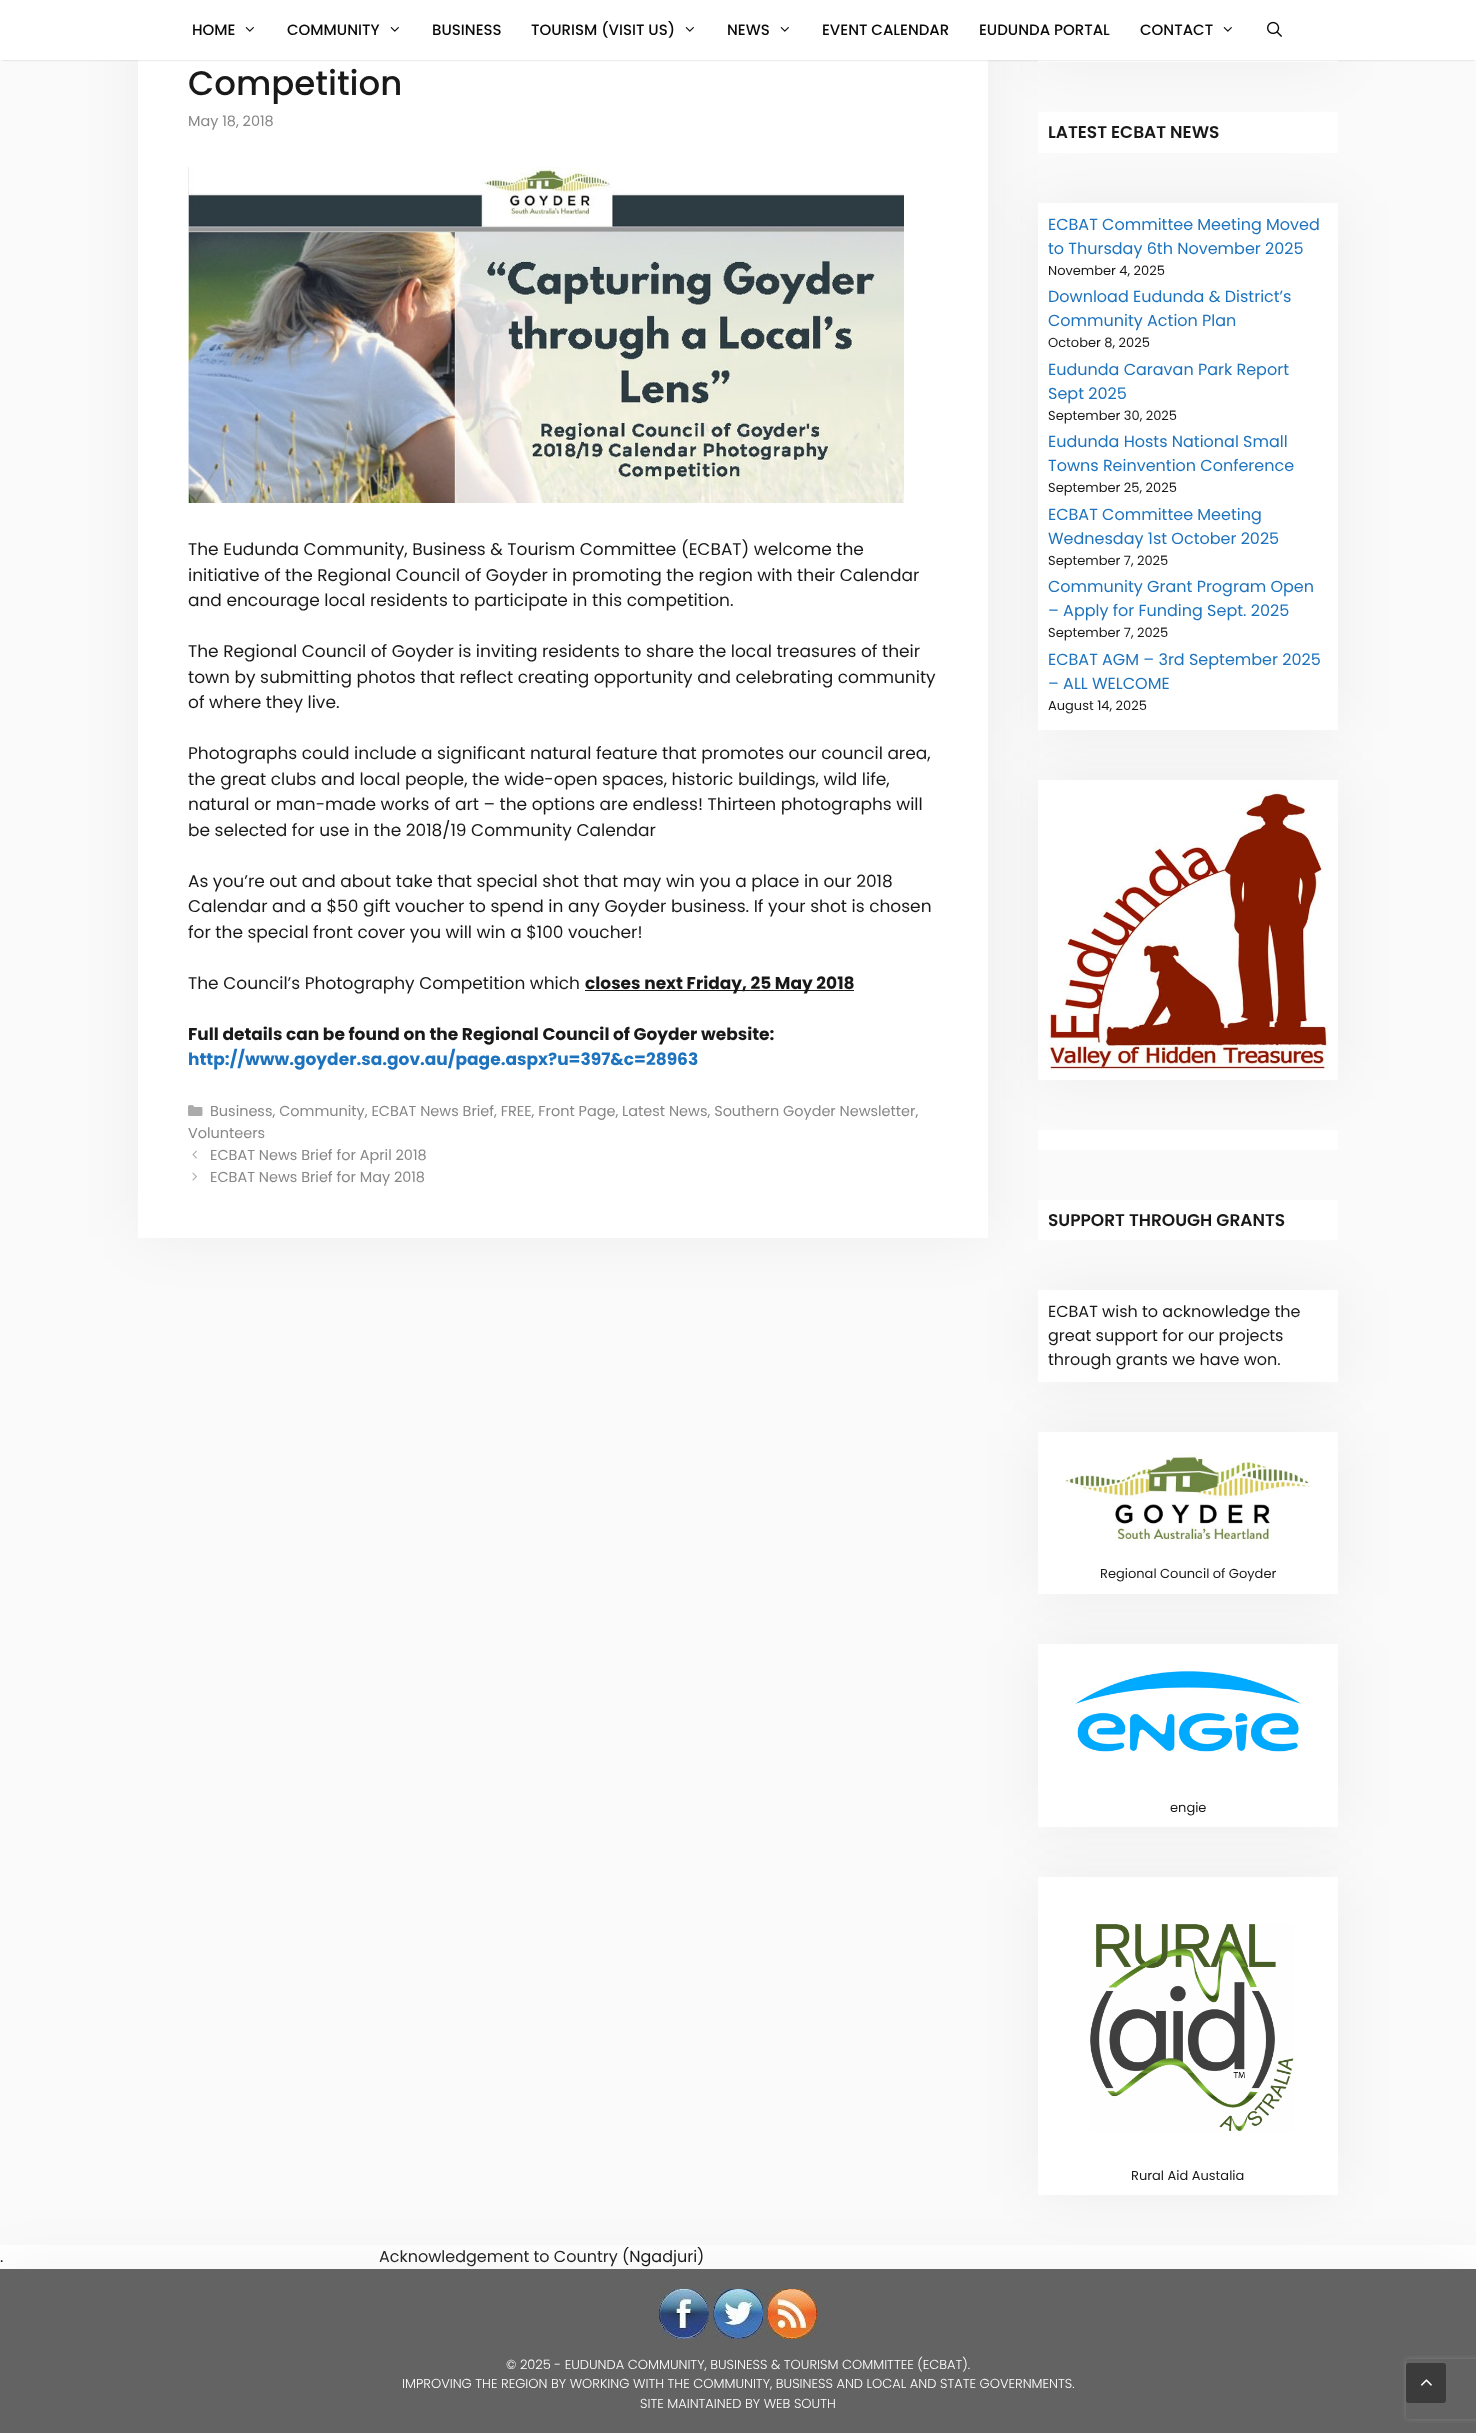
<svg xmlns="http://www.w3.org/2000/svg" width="1476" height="2433">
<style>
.a{font:500 15px Poppins;fill:#0a0a0a}
.b{font:500 34px Poppins;fill:#191919}
.c{font:14.45px Poppins;fill:#878787}
.d{font:17px Poppins;fill:#191919}
.e{font:bold 17px Poppins;fill:#191919}
.f{font:bold 17px Poppins;fill:#1e73be}
.g{font:600 17px Poppins;fill:#191919}
.h{font:16px Poppins;fill:#1e73be}
.i{font:13px Poppins;fill:#191919}
.j{font:16px Poppins;fill:#191919}
.k{font:16px Poppins;fill:#262626}
.l{font:300 13px Poppins;fill:#fff}
</style>
<defs>
<clipPath id="clip1"><path d="M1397 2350h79v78h-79zm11 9h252c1 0 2 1 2 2v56c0 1-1 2-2 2h-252c-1 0-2-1-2-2v-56c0-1 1-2 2-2z" clip-rule="evenodd"/></clipPath>
</defs>
<rect width="100%" height="100%" fill="#fafafa"/>
<path fill="#0000000d" filter="blur(30px)" d="M138 -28h850v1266H138z"/>
<path fill="#fff" d="M138 60h850v1178H138z"/>
<path fill="#0000000d" filter="blur(30px)" d="M1038 -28h300v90H1038z"/>
<path fill="#fff" d="M1038 60h300v2H1038z"/>
<path fill="#00000033" filter="blur(1px)" d="M2 4h1472v56H2z"/>
<path fill="#fff" d="M0 0h1476v60H0z"/>
<image href="1.png" x="245" y="27" width="9" height="5"/>
<image href="1.png" x="390" y="27" width="9" height="5"/>
<image href="1.png" x="685" y="27" width="9" height="5"/>
<image href="1.png" x="780" y="27" width="9" height="5"/>
<image href="1.png" x="1223" y="27" width="9" height="5"/>
<image href="2.png" x="1267" y="21" width="15" height="16"/>
<image href="3.png" x="188" y="167" width="716" height="336"/>
<path fill="#191919" d="M585 990h269v1H585z"/>
<image href="4.png" x="188" y="1105" width="15" height="11"/>
<image href="5.png" x="192" y="1150" width="5" height="9"/>
<image href="6.png" x="192" y="1172" width="5" height="9"/>
<path fill="#fff" d="M1038 112h300v41H1038z"/>
<path fill="#0000000d" filter="blur(30px)" d="M1038 203h300v527H1038z"/>
<path fill="#fff" d="M1038 203h300v527H1038z"/>
<path fill="#0000000d" filter="blur(30px)" d="M1038 780h300v300H1038z"/>
<path fill="#fff" d="M1038 780h300v300H1038z"/>
<image href="7.png" x="1048" y="790" width="280" height="280"/>
<path fill="#fff" d="M1038 1130h300v20H1038z"/>
<path fill="#fff" d="M1038 1200h300v40H1038z"/>
<path fill="#0000000d" filter="blur(30px)" d="M1038 1290h300v92H1038z"/>
<path fill="#fff" d="M1038 1290h300v92H1038z"/>
<path fill="#0000000d" filter="blur(30px)" d="M1038 1432h300v162H1038z"/>
<path fill="#fff" d="M1038 1432h300v162H1038z"/>
<image href="8.png" x="1065" y="1454" width="246" height="89"/>
<path fill="#0000000d" filter="blur(30px)" d="M1038 1644h300v183H1038z"/>
<path fill="#fff" d="M1038 1644h300v183H1038z"/>
<image href="9.png" x="1075" y="1671" width="227" height="81"/>
<path fill="#fff" d="M0 2245h1476v24H0z"/>
<path fill="#0000000d" filter="blur(30px)" d="M0 2269h1476v164H0z"/>
<path fill="#636363" d="M0 2269h1476v164H0z"/>
<path fill="#0000000d" filter="blur(30px)" d="M1038 1877h300v318H1038z"/>
<path fill="#fff" d="M1038 1877h300v318H1038z"/>
<image href="10.png" x="1090" y="1924" width="204" height="208"/>
<image href="11.png" x="659" y="2289" width="50" height="50"/>
<image href="12.png" x="713" y="2289" width="50" height="50"/>
<image href="13.png" x="767" y="2289" width="50" height="50"/>
<g clip-path="url(#clip1)">
<rect fill="#808080" filter="blur(2.5px)" x="1406" y="2359" width="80" height="60" rx="2"/>
</g>
<rect fill="#3b3b3b" x="1406" y="2363" width="40" height="40" rx="3"/>
<image href="14.png" x="1420" y="2379" width="12" height="7"/>
<text class="a" x="192" y="35">HOME</text>
<text class="a" x="287" y="35">COMMUNITY</text>
<text class="a" x="432" y="35">BUSINESS</text>
<text class="a" x="531" y="35">TOURISM (VISIT US)</text>
<text class="a" x="727" y="35">NEWS</text>
<text class="a" x="822" y="35">EVENT CALENDAR</text>
<text class="a" x="979" y="35">EUDUNDA PORTAL</text>
<text class="a" x="1140" y="35">CONTACT</text>
<text class="b" x="188" y="95">Competition</text>
<text class="c" x="188" y="126">May 18, 2018</text>
<text class="d" x="188" y="555">The Eudunda Community, Business &amp; Tourism Committee (ECBAT) welcome the</text>
<text class="d" x="188" y="581">initiative of the Regional Council of Goyder in promoting the region with their Calendar</text>
<text class="d" x="188" y="606">and encourage local residents to participate in this competition.</text>
<text class="d" x="188" y="657">The Regional Council of Goyder is inviting residents to share the local treasures of their</text>
<text class="d" x="188" y="683">town by submitting photos that reflect creating opportunity and celebrating community</text>
<text class="d" x="188" y="708">of where they live.</text>
<text class="d" x="188" y="759">Photographs could include a significant natural feature that promotes our council area,</text>
<text class="d" x="188" y="785">the great clubs and local people, the wide-open spaces, historic buildings, wild life,</text>
<text class="d" x="188" y="810">natural or man-made works of art – the options are endless! Thirteen photographs will</text>
<text class="d" x="188" y="836">be selected for use in the 2018/19 Community Calendar</text>
<text class="d" x="188" y="887">As you’re out and about take that special shot that may win you a place in our 2018</text>
<text class="d" x="188" y="912">Calendar and a $50 gift voucher to spend in any Goyder business. If your shot is chosen</text>
<text class="d" x="188" y="938">for the special front cover you will win a $100 voucher!</text>
<text class="d" x="188" y="989">The Council’s Photography Competition which</text>
<text class="e" x="585" y="989">closes next Friday, 25 May 2018</text>
<text class="e" x="188" y="1040">Full details can be found on the Regional Council of Goyder website:</text>
<text class="f" x="188" y="1065">http://www.goyder.sa.gov.au/page.aspx?u=397&amp;c=28963</text>
<text class="c" x="210" y="1116">Business, Community, ECBAT News Brief, FREE, Front Page, Latest News, Southern Goyder Newsletter,</text>
<text class="c" x="188" y="1138">Volunteers</text>
<text class="c" x="210" y="1160">ECBAT News Brief for April 2018</text>
<text class="c" x="210" y="1182">ECBAT News Brief for May 2018</text>
<text class="g" x="1048" y="138">LATEST ECBAT NEWS</text>
<text class="h" x="1048" y="230">ECBAT Committee Meeting Moved</text>
<text class="h" x="1048" y="254">to Thursday 6th November 2025</text>
<text class="i" x="1048" y="275">November 4, 2025</text>
<text class="h" x="1048" y="302">Download Eudunda &amp; District’s</text>
<text class="h" x="1048" y="326">Community Action Plan</text>
<text class="i" x="1048" y="347">October 8, 2025</text>
<text class="h" x="1048" y="375">Eudunda Caravan Park Report</text>
<text class="h" x="1048" y="399">Sept 2025</text>
<text class="i" x="1048" y="420">September 30, 2025</text>
<text class="h" x="1048" y="447">Eudunda Hosts National Small</text>
<text class="h" x="1048" y="471">Towns Reinvention Conference</text>
<text class="i" x="1048" y="492">September 25, 2025</text>
<text class="h" x="1048" y="520">ECBAT Committee Meeting</text>
<text class="h" x="1048" y="544">Wednesday 1st October 2025</text>
<text class="i" x="1048" y="565">September 7, 2025</text>
<text class="h" x="1048" y="592">Community Grant Program Open</text>
<text class="h" x="1048" y="616">– Apply for Funding Sept. 2025</text>
<text class="i" x="1048" y="637">September 7, 2025</text>
<text class="h" x="1048" y="665">ECBAT AGM – 3rd September 2025</text>
<text class="h" x="1048" y="689">– ALL WELCOME</text>
<text class="i" x="1048" y="710">August 14, 2025</text>
<text class="g" x="1048" y="1226">SUPPORT THROUGH GRANTS</text>
<text class="j" x="1048" y="1317">ECBAT wish to acknowledge the</text>
<text class="j" x="1048" y="1341">great support for our projects</text>
<text class="j" x="1048" y="1365">through grants we have won.</text>
<text class="i" x="1100" y="1578">Regional Council of Goyder</text>
<text class="i" x="1170" y="1812">engie</text>
<text class="i" x="1131" y="2180">Rural Aid Austalia</text>
<text class="j" x="0" y="2262">.</text>
<text class="k" x="379" y="2262">Acknowledgement to Country</text>
<text class="j" x="622" y="2262">(Ngadjuri)</text>
<text class="l" x="506" y="2369">© 2025 - EUDUNDA COMMUNITY, BUSINESS &amp; TOURISM COMMITTEE (ECBAT).</text>
<text class="l" x="402" y="2388">IMPROVING THE REGION BY WORKING WITH THE COMMUNITY, BUSINESS AND LOCAL AND STATE GOVERNMENTS.</text>
<text class="l" x="640" y="2408">SITE MAINTAINED BY WEB SOUTH</text>
</svg>
